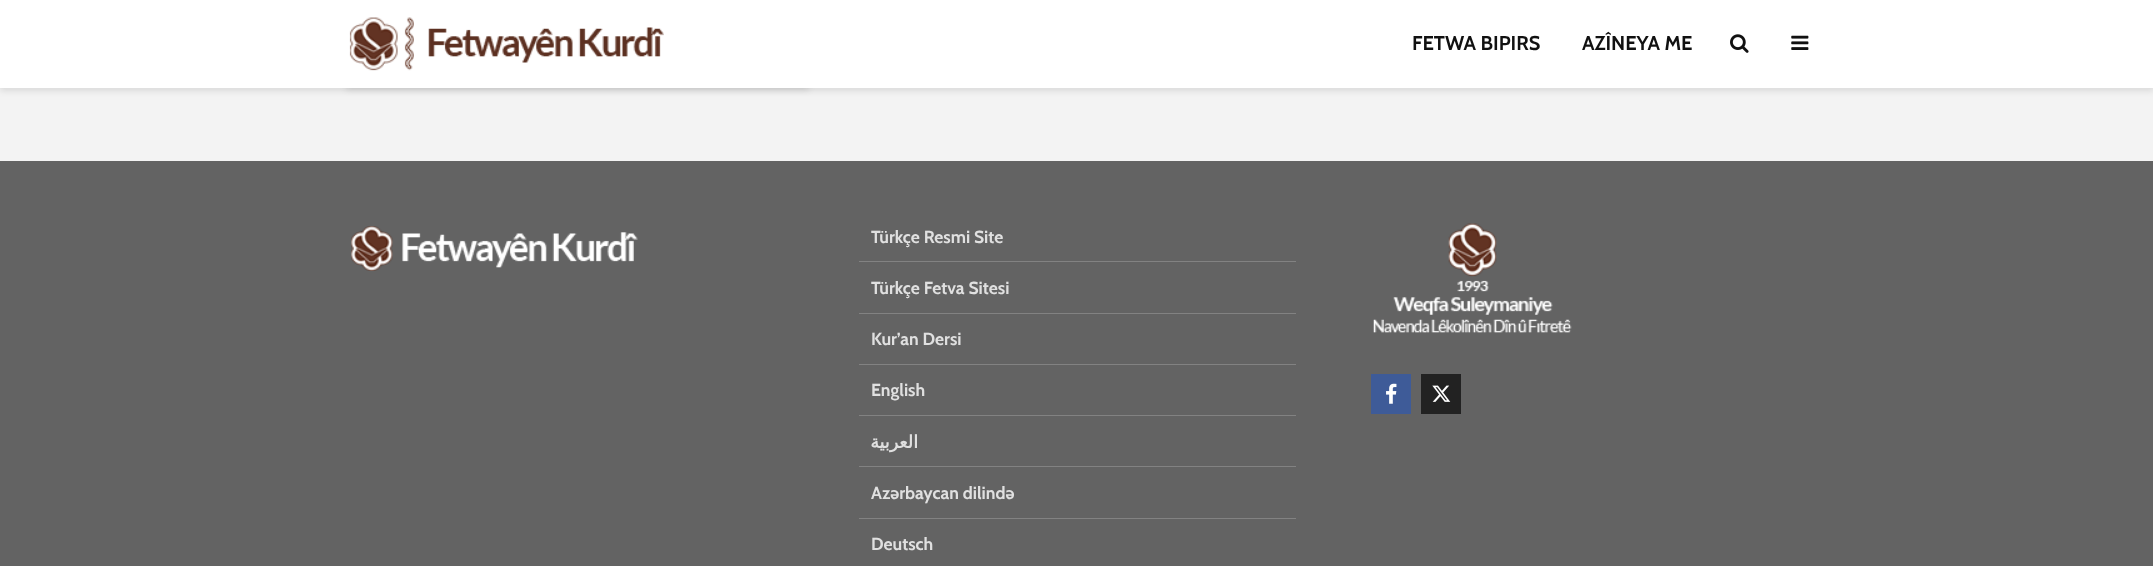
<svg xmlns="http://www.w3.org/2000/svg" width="2153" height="566">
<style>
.a{font:bold 20px Cabin;fill:#111}
.b{font:bold 17.5px Cabin;fill:#e0e0e0}
.c{font:bold 17.5px DejaVu Sans;direction:rtl;fill:#e0e0e0}
</style>
<rect width="100%" height="100%" fill="#f3f3f3"/>
<path fill="#0001011a" filter="blur(3px)" d="M346 -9h463v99H346z"/>
<path fill="#0001011a" filter="blur(3px)" d="M0 4h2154v87H0z"/>
<path fill="#fff" d="M0 0h2153v88H0z"/>
<image href="1.png" x="349" y="17" width="315" height="54"/>
<image href="2.png" x="1730" y="34" width="19" height="19"/>
<image href="3.png" x="1791" y="35" width="18" height="15"/>
<path fill="#636363" d="M0 161h2153v405H0z"/>
<image href="4.png" x="351" y="226" width="287" height="45"/>
<path fill="#828282" d="M859 261h437v1H859z"/>
<path fill="#828282" d="M859 313h437v1H859z"/>
<path fill="#828282" d="M859 364h437v1H859z"/>
<path fill="#828282" d="M859 415h437v1H859z"/>
<path fill="#828282" d="M859 466h437v1H859z"/>
<path fill="#828282" d="M859 518h437v1H859z"/>
<image href="5.png" x="1373" y="223" width="199" height="110"/>
<path fill="#3e5b98" d="M1371 374h40v40H1371z"/>
<image href="6.png" x="1386" y="383" width="11" height="21"/>
<path fill="#222" d="M1421 374h40v40H1421z"/>
<image href="7.png" x="1432" y="385" width="19" height="17"/>
<text class="a" x="1412" y="50">FETWA BIPIRS</text>
<text class="a" x="1582" y="50">AZÎNEYA ME</text>
<text class="b" x="871" y="243">Türkçe Resmi Site</text>
<text class="b" x="871" y="294">Türkçe Fetva Sitesi</text>
<text class="b" x="871" y="345">Kur’an Dersi</text>
<text class="b" x="871" y="396">English</text>
<text class="c" x="918" y="448">العربية</text>
<text class="b" x="871" y="499">Azərbaycan dilində</text>
<text class="b" x="871" y="550">Deutsch</text>
</svg>
